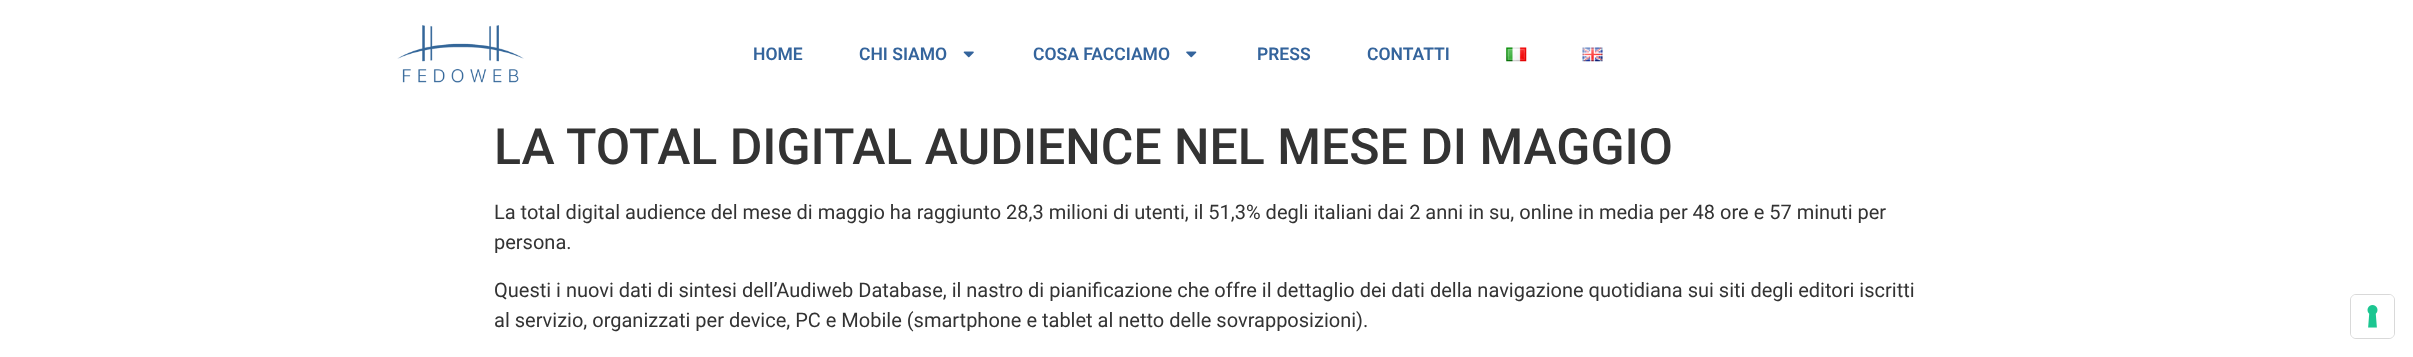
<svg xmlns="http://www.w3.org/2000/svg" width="2413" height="357">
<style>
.a{font:600 17.5px Roboto;fill:#34649c}
.b{font:500 50px Roboto;fill:#333}
.c{font:20px Roboto;fill:#333}
</style>
<rect width="100%" height="100%" fill="#fff"/>
<image href="1.png" x="397" y="25" width="127" height="58"/>
<image href="2.png" x="963" y="51" width="11" height="7"/>
<image href="3.png" x="1186" y="51" width="11" height="7"/>
<image href="4.png" x="1506" y="47" width="21" height="15"/>
<image href="5.png" x="1582" y="47" width="21" height="15"/>
<rect fill="none" stroke="#d9d9d9" x="2350.5" y="294.5" width="44" height="44" rx="5.5"/>
<rect fill="#fff" x="2351" y="295" width="43" height="43" rx="5"/>
<image href="6.png" x="2367" y="305" width="11" height="23"/>
<text class="a" x="753" y="60">HOME</text>
<text class="a" x="859" y="60">CHI SIAMO</text>
<text class="a" x="1033" y="60">COSA FACCIAMO</text>
<text class="a" x="1257" y="60">PRESS</text>
<text class="a" x="1367" y="60">CONTATTI</text>
<text class="b" x="494" y="164">LA TOTAL DIGITAL AUDIENCE NEL MESE DI MAGGIO</text>
<text class="c" x="494" y="219">La total digital audience del mese di maggio ha raggiunto 28,3 milioni di utenti, il 51,3% degli italiani dai 2 anni in su, online in media per 48 ore e 57 minuti per</text>
<text class="c" x="494" y="249">persona.</text>
<text class="c" x="494" y="297">Questi i nuovi dati di sintesi dell’Audiweb Database, il nastro di pianificazione che offre il dettaglio dei dati della navigazione quotidiana sui siti degli editori iscritti</text>
<text class="c" x="494" y="327">al servizio, organizzati per device, PC e Mobile (smartphone e tablet al netto delle sovrapposizioni).</text>
</svg>
